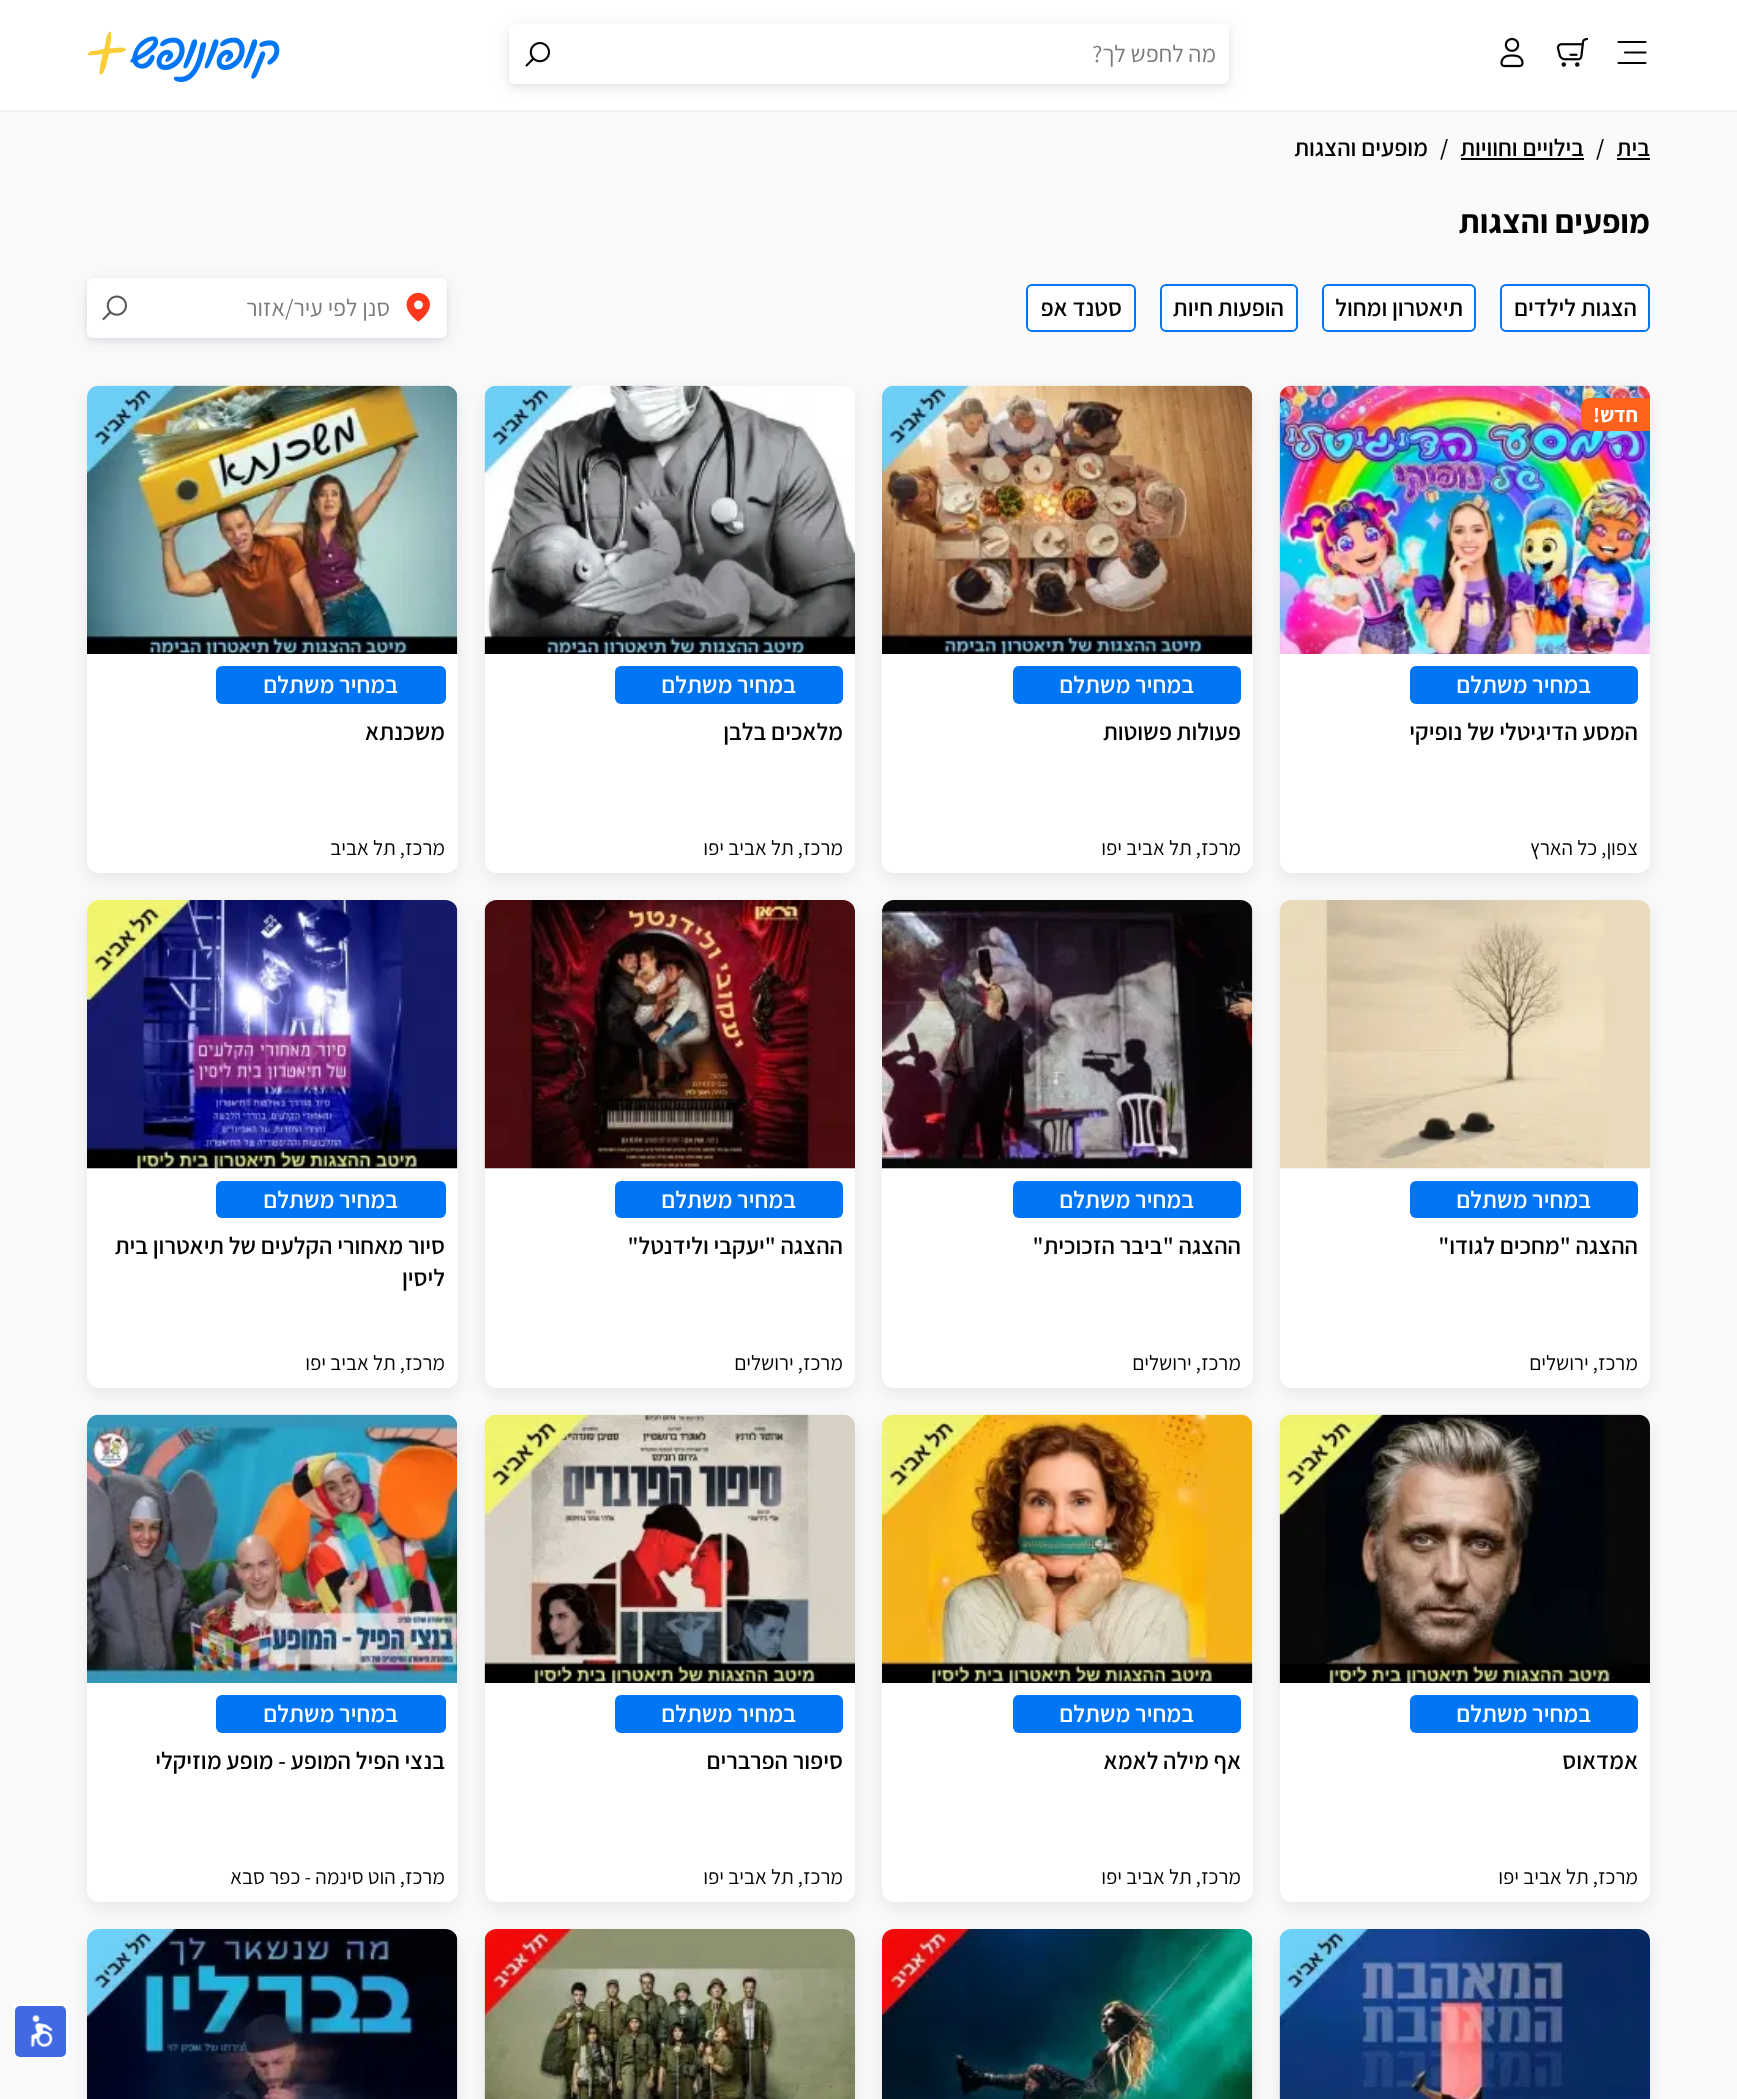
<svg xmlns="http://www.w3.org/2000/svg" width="1737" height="2099">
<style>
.a{font:24px Assistant;direction:rtl;fill:#7a7a7a}
.b{font:600 24px Assistant;direction:rtl;fill:#040403}
.c{font:600 24px Assistant;fill:#040403}
.d{font:bold 33px Assistant;direction:rtl;fill:#040403}
.e{font:bold 21px Assistant;direction:rtl;fill:#fff}
.f{font:600 24px Assistant;direction:rtl;fill:#fff}
.g{font:21px Assistant;direction:rtl;fill:#040403}
</style>
<rect width="100%" height="100%" fill="#fafafa"/>
<path fill="#fff" d="M0 0h1737v110H0z"/>
<path fill="#f0eff4" d="M0 110h1737v2H0z"/>
<path fill="none" stroke="#040403" stroke-width="2.2" stroke-linecap="round" d="M1618.5 42h27m-20.5 10.5h20.5m-27 10.5h27"/>
<image href="1.png" x="1556" y="37" width="33" height="30"/>
<image href="2.png" x="1500" y="37" width="24" height="31"/>
<image href="3.png" x="87" y="31" width="193" height="51"/>
<rect fill="#18274b14" filter="blur(3px)" x="509" y="27" width="720" height="60" rx="6"/>
<rect fill="#18274b14" filter="blur(9px)" x="509" y="27" width="720" height="60" rx="6"/>
<rect fill="#fff" x="509" y="24" width="720" height="60" rx="6"/>
<image href="4.png" x="525" y="42" width="25" height="25"/>
<path fill="#040403" d="M1617 158h33v2H1617z"/>
<path fill="#040403" d="M1461 158h123v2H1461z"/>
<rect fill="#fff" stroke="#0076f5" stroke-width="2" x="1501" y="285" width="148" height="46" rx="5"/>
<rect fill="#fff" stroke="#0076f5" stroke-width="2" x="1323" y="285" width="152" height="46" rx="5"/>
<rect fill="#fff" stroke="#0076f5" stroke-width="2" x="1161" y="285" width="136" height="46" rx="5"/>
<rect fill="#fff" stroke="#0076f5" stroke-width="2" x="1027" y="285" width="108" height="46" rx="5"/>
<rect fill="#18274b14" filter="blur(3px)" x="87" y="281" width="360" height="60" rx="6"/>
<rect fill="#18274b14" filter="blur(9px)" x="87" y="281" width="360" height="60" rx="6"/>
<rect fill="#fff" x="87" y="278" width="360" height="60" rx="6"/>
<image href="5.png" x="406" y="292" width="24" height="30"/>
<image href="6.png" x="102" y="295" width="25" height="26"/>
<rect fill="#00000014" filter="blur(9px)" x="1280" y="392" width="370" height="487" rx="12"/>
<rect fill="#fff" x="1280" y="386" width="370" height="487" rx="12"/>
<rect fill="#00000014" filter="blur(9px)" x="882" y="392" width="371" height="487" rx="12"/>
<image href="7.png" x="1279" y="385" width="371" height="269"/>
<path fill="#fe621d" d="M1590 398h60v33h-60c-5 0-9-4-9-9v-15c0-5 4-9 9-9z"/>
<rect fill="#0076f5" x="1410" y="666" width="228" height="38" rx="6"/>
<rect fill="#fff" x="882" y="386" width="371" height="487" rx="12"/>
<rect fill="#00000014" filter="blur(9px)" x="485" y="392" width="370" height="487" rx="12"/>
<path fill="#fcfcfc" d="M894 386h347c6.5 0 12 5.5 12 12v256h-371v-256c0-6.5 5.5-12 12-12z"/>
<image href="8.png" x="882" y="385" width="371" height="269"/>
<rect fill="#0076f5" x="1013" y="666" width="228" height="38" rx="6"/>
<rect fill="#fff" x="485" y="386" width="370" height="487" rx="12"/>
<rect fill="#00000014" filter="blur(9px)" x="87" y="392" width="371" height="487" rx="12"/>
<image href="9.png" x="484" y="385" width="371" height="269"/>
<rect fill="#0076f5" x="615" y="666" width="228" height="38" rx="6"/>
<rect fill="#fff" x="87" y="386" width="371" height="487" rx="12"/>
<path fill="#fcfcfc" d="M99 386h347c6.5 0 12 5.5 12 12v256h-371v-256c0-6.5 5.5-12 12-12z"/>
<image href="10.png" x="87" y="385" width="371" height="269"/>
<rect fill="#0076f5" x="216" y="666" width="230" height="38" rx="6"/>
<rect fill="#00000014" filter="blur(9px)" x="1280" y="906" width="370" height="488" rx="12"/>
<rect fill="#fff" x="1280" y="900" width="370" height="488" rx="12"/>
<rect fill="#00000014" filter="blur(9px)" x="882" y="906" width="371" height="488" rx="12"/>
<path fill="#fcfcfc" d="M1292 900h346c6.5 0 12 5.5 12 12v257h-370v-257c0-6.5 5.5-12 12-12z"/>
<image href="11.png" x="1279" y="900" width="371" height="269"/>
<rect fill="#0076f5" x="1410" y="1181" width="228" height="37" rx="6"/>
<rect fill="#fff" x="882" y="900" width="371" height="488" rx="12"/>
<rect fill="#00000014" filter="blur(9px)" x="485" y="906" width="370" height="488" rx="12"/>
<path fill="#fcfcfc" d="M894 900h347c6.5 0 12 5.5 12 12v257h-371v-257c0-6.5 5.5-12 12-12z"/>
<image href="12.png" x="882" y="900" width="371" height="269"/>
<rect fill="#0076f5" x="1013" y="1181" width="228" height="37" rx="6"/>
<rect fill="#fff" x="485" y="900" width="370" height="488" rx="12"/>
<rect fill="#00000014" filter="blur(9px)" x="87" y="906" width="371" height="488" rx="12"/>
<path fill="#fcfcfc" d="M497 900h346c6.5 0 12 5.5 12 12v257h-370v-257c0-6.5 5.5-12 12-12z"/>
<image href="13.png" x="484" y="900" width="371" height="269"/>
<rect fill="#0076f5" x="615" y="1181" width="228" height="37" rx="6"/>
<rect fill="#fff" x="87" y="900" width="371" height="488" rx="12"/>
<path fill="#fcfcfc" d="M99 900h347c6.5 0 12 5.5 12 12v257h-371v-257c0-6.5 5.5-12 12-12z"/>
<image href="14.png" x="87" y="900" width="371" height="269"/>
<rect fill="#0076f5" x="216" y="1181" width="230" height="37" rx="6"/>
<rect fill="#00000014" filter="blur(9px)" x="1280" y="1421" width="370" height="487" rx="12"/>
<rect fill="#fff" x="1280" y="1415" width="370" height="487" rx="12"/>
<rect fill="#00000014" filter="blur(9px)" x="882" y="1421" width="371" height="487" rx="12"/>
<image href="15.png" x="1279" y="1414" width="371" height="269"/>
<rect fill="#0076f5" x="1410" y="1695" width="228" height="38" rx="6"/>
<rect fill="#fff" x="882" y="1415" width="371" height="487" rx="12"/>
<rect fill="#00000014" filter="blur(9px)" x="485" y="1421" width="370" height="487" rx="12"/>
<path fill="#fcfcfc" d="M894 1415h347c6.5 0 12 5.5 12 12v256h-371v-256c0-6.5 5.5-12 12-12z"/>
<image href="16.png" x="882" y="1414" width="371" height="269"/>
<rect fill="#0076f5" x="1013" y="1695" width="228" height="38" rx="6"/>
<rect fill="#fff" x="485" y="1415" width="370" height="487" rx="12"/>
<rect fill="#00000014" filter="blur(9px)" x="87" y="1421" width="371" height="487" rx="12"/>
<image href="17.png" x="484" y="1414" width="371" height="269"/>
<rect fill="#0076f5" x="615" y="1695" width="228" height="38" rx="6"/>
<rect fill="#fff" x="87" y="1415" width="371" height="487" rx="12"/>
<path fill="#fcfcfc" d="M99 1415h347c6.5 0 12 5.5 12 12v256h-371v-256c0-6.5 5.5-12 12-12z"/>
<image href="18.png" x="87" y="1414" width="371" height="269"/>
<rect fill="#0076f5" x="216" y="1695" width="230" height="38" rx="6"/>
<rect fill="#00000014" filter="blur(9px)" x="1280" y="1935" width="370" height="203" rx="12"/>
<rect fill="#00000014" filter="blur(9px)" x="882" y="1935" width="371" height="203" rx="12"/>
<image href="19.png" x="1279" y="1929" width="371" height="170"/>
<rect fill="#00000014" filter="blur(9px)" x="485" y="1935" width="370" height="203" rx="12"/>
<path fill="#fcfcfc" d="M894 1929h347c6.5 0 12 5.5 12 12v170h-371v-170c0-6.5 5.5-12 12-12z"/>
<image href="20.png" x="882" y="1929" width="371" height="170"/>
<rect fill="#00000014" filter="blur(9px)" x="87" y="1935" width="371" height="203" rx="12"/>
<image href="21.png" x="484" y="1929" width="371" height="170"/>
<path fill="#fcfcfc" d="M99 1929h347c6.5 0 12 5.5 12 12v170h-371v-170c0-6.5 5.5-12 12-12z"/>
<image href="22.png" x="87" y="1929" width="371" height="170"/>
<rect fill="none" stroke="#fff" stroke-width="3" x="13.5" y="2004.5" width="54" height="54" rx="6.5"/>
<rect fill="#4169e1" x="15" y="2006" width="51" height="51" rx="5"/>
<image href="23.png" x="30" y="2015" width="23" height="32"/>
<text class="a" x="1216" y="62">מה לחפש לך?</text>
<text class="b" x="1650" y="156">בית</text>
<text class="c" x="1596" y="156">/</text>
<text class="b" x="1584" y="156">בילויים וחוויות</text>
<text class="c" x="1440" y="156">/</text>
<text class="b" x="1428" y="156">מופעים והצגות</text>
<text class="d" x="1650" y="233">מופעים והצגות</text>
<text class="b" x="1637" y="316">הצגות לילדים</text>
<text class="b" x="1463" y="316">תיאטרון ומחול</text>
<text class="b" x="1284" y="316">הופעות חיות</text>
<text class="b" x="1122" y="316">סטנד אפ</text>
<text class="a" x="390" y="316">סנן לפי עיר/אזור</text>
<text class="e" x="1638" y="422">חדש!</text>
<text class="f" x="1591" y="693">במחיר משתלם</text>
<text class="b" x="1638" y="740">המסע הדיגיטלי של נופיקי</text>
<text class="g" x="1638" y="855">צפון, כל הארץ</text>
<text class="f" x="1194" y="693">במחיר משתלם</text>
<text class="b" x="1241" y="740">פעולות פשוטות</text>
<text class="g" x="1241" y="855">מרכז, תל אביב יפו</text>
<text class="f" x="796" y="693">במחיר משתלם</text>
<text class="b" x="843" y="740">מלאכים בלבן</text>
<text class="g" x="843" y="855">מרכז, תל אביב יפו</text>
<text class="f" x="398" y="693">במחיר משתלם</text>
<text class="b" x="445" y="740">משכנתא</text>
<text class="g" x="445" y="855">מרכז, תל אביב</text>
<text class="f" x="1591" y="1208">במחיר משתלם</text>
<text class="b" x="1638" y="1254">ההצגה "מחכים לגודו"</text>
<text class="g" x="1638" y="1370">מרכז, ירושלים</text>
<text class="f" x="1194" y="1208">במחיר משתלם</text>
<text class="b" x="1241" y="1254">ההצגה "ביבר הזכוכית"</text>
<text class="g" x="1241" y="1370">מרכז, ירושלים</text>
<text class="f" x="796" y="1208">במחיר משתלם</text>
<text class="b" x="843" y="1254">ההצגה "יעקבי ולידנטל"</text>
<text class="g" x="843" y="1370">מרכז, ירושלים</text>
<text class="f" x="398" y="1208">במחיר משתלם</text>
<text class="b" x="445" y="1254">סיור מאחורי הקלעים של תיאטרון בית</text>
<text class="b" x="445" y="1286">ליסין</text>
<text class="g" x="445" y="1370">מרכז, תל אביב יפו</text>
<text class="f" x="1591" y="1722">במחיר משתלם</text>
<text class="b" x="1638" y="1769">אמדאוס</text>
<text class="g" x="1638" y="1884">מרכז, תל אביב יפו</text>
<text class="f" x="1194" y="1722">במחיר משתלם</text>
<text class="b" x="1241" y="1769">אף מילה לאמא</text>
<text class="g" x="1241" y="1884">מרכז, תל אביב יפו</text>
<text class="f" x="796" y="1722">במחיר משתלם</text>
<text class="b" x="843" y="1769">סיפור הפרברים</text>
<text class="g" x="843" y="1884">מרכז, תל אביב יפו</text>
<text class="f" x="398" y="1722">במחיר משתלם</text>
<text class="b" x="445" y="1769">בנצי הפיל המופע - מופע מוזיקלי</text>
<text class="g" x="445" y="1884">מרכז, הוט סינמה - כפר סבא</text>
</svg>
